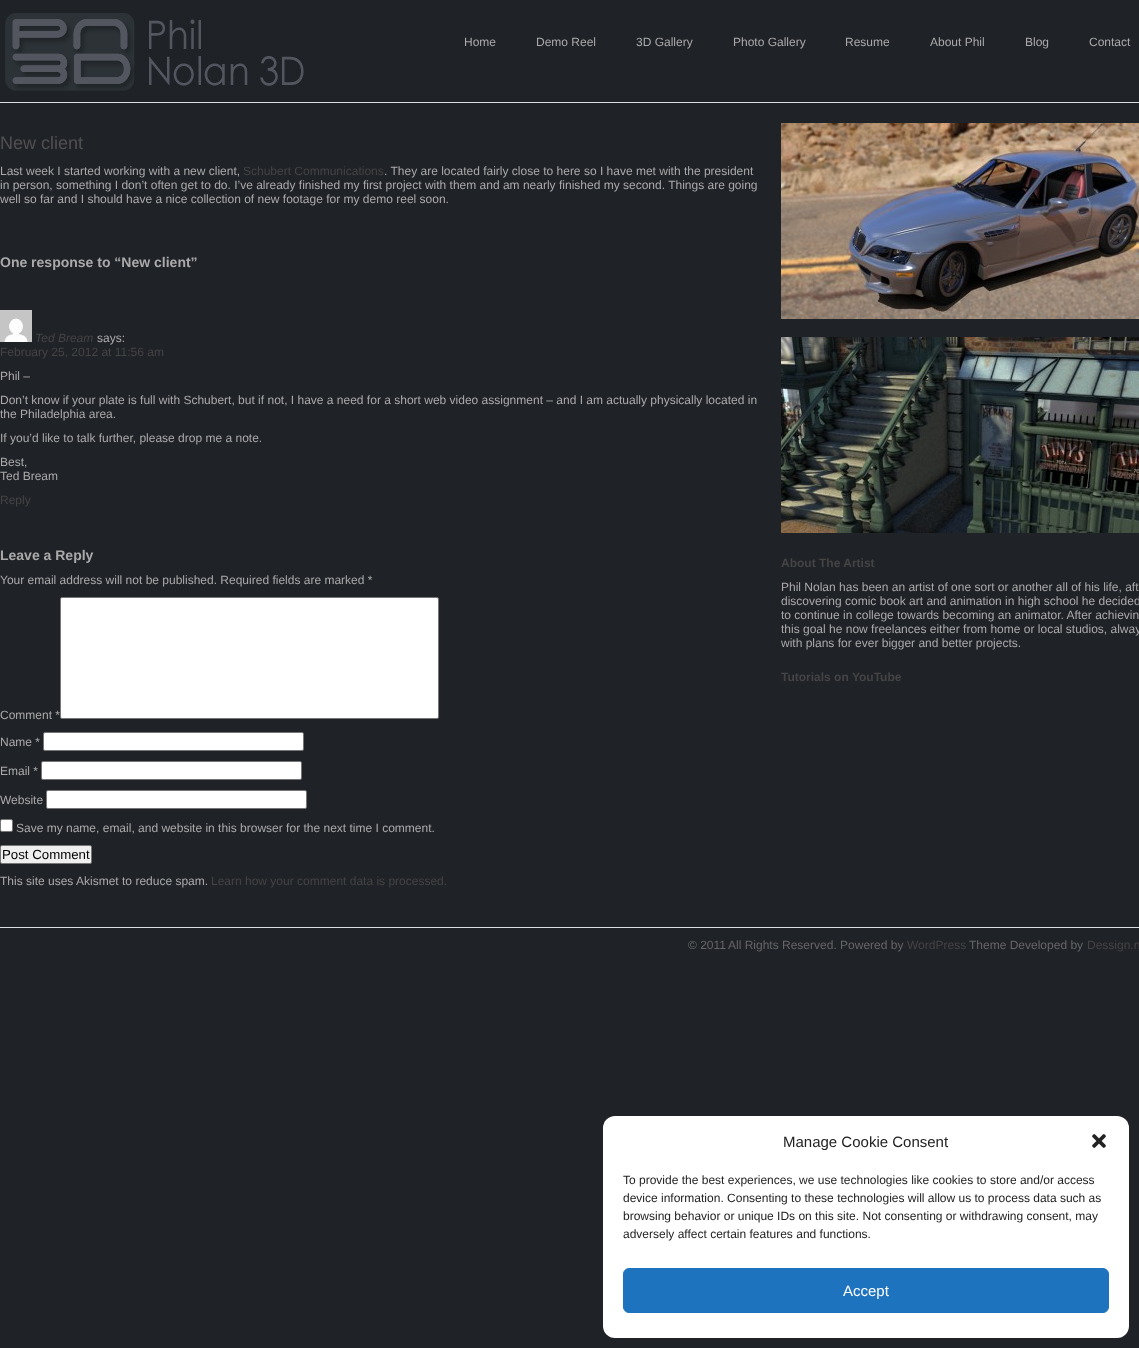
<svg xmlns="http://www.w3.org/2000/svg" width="1139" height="1348">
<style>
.a{font:12px Liberation Sans;fill:#aaa}
.b{font:18px Liberation Sans;fill:#505050}
.c{font:12px Liberation Sans;fill:#444}
.d{font:bold 14px Liberation Sans;fill:#aaa}
.e{font:italic 12px Liberation Sans;fill:#444}
.f{font:13.25px Liberation Sans;fill:#000}
.g{font:bold 12px Liberation Sans;fill:#444}
.h{font:12px Liberation Sans;fill:#666}
.i{font:15px Liberation Sans;fill:#222}
.j{font:12px Liberation Sans;fill:#222}
.k{font:15px Liberation Sans;fill:#fff}
</style>
<rect width="100%" height="100%" fill="#1f2227"/>
<path fill="#dcdee1" d="M0 102h1139v1H0z"/>
<image href="1.png" x="5" y="13" width="299" height="78"/>
<image href="2.png" x="0" y="310" width="32" height="32"/>
<rect fill="#fff" stroke="#767676" x="60.5" y="597.5" width="378" height="121" rx="1.5"/>
<rect fill="#fff" stroke="#767676" x="43.5" y="732.5" width="260" height="18" rx="1.5"/>
<rect fill="#fff" stroke="#767676" x="41.5" y="761.5" width="260" height="18" rx="1.5"/>
<rect fill="#fff" stroke="#767676" x="46.5" y="790.5" width="260" height="18" rx="1.5"/>
<rect fill="#fff" stroke="#767676" x="0.5" y="819.5" width="12" height="12" rx="1.5"/>
<rect fill="#efefef" stroke="#767676" x="0.5" y="845.5" width="91" height="18" rx="1.5"/>
<image href="3.png" x="781" y="123" width="358" height="196"/>
<image href="4.png" x="781" y="337" width="358" height="196"/>
<path fill="#dcdee1" d="M0 927h1139v1H0z"/>
<rect fill="#fff" x="603" y="1116" width="526" height="222" rx="12"/>
<image href="5.png" x="1092" y="1134" width="14" height="14"/>
<rect fill="#1e73be" stroke="#1e73be" x="623.5" y="1268.5" width="485" height="44" rx="5.5"/>
<text class="a" x="464" y="46">Home</text>
<text class="a" x="536" y="46">Demo Reel</text>
<text class="a" x="636" y="46">3D Gallery</text>
<text class="a" x="733" y="46">Photo Gallery</text>
<text class="a" x="845" y="46">Resume</text>
<text class="a" x="930" y="46">About Phil</text>
<text class="a" x="1025" y="46">Blog</text>
<text class="a" x="1089" y="46">Contact</text>
<text class="b" x="0" y="149">New client</text>
<text class="a" x="0" y="175">Last week I started working with a new client,</text>
<text class="c" x="243" y="175">Schubert Communications</text>
<text class="a" x="384" y="175">. They are located fairly close to here so I have met with the president</text>
<text class="a" x="0" y="189">in person, something I don’t often get to do. I’ve already finished my first project with them and am nearly finished my second. Things are going</text>
<text class="a" x="0" y="203">well so far and I should have a nice collection of new footage for my demo reel soon.</text>
<text class="d" x="0" y="267">One response to “New client”</text>
<text class="e" x="35" y="342">Ted Bream</text>
<text class="a" x="97" y="342">says:</text>
<text class="c" x="0" y="356">February 25, 2012 at 11:56 am</text>
<text class="a" x="0" y="380">Phil –</text>
<text class="a" x="0" y="404">Don’t know if your plate is full with Schubert, but if not, I have a need for a short web video assignment – and I am actually physically located in</text>
<text class="a" x="0" y="418">the Philadelphia area.</text>
<text class="a" x="0" y="442">If you’d like to talk further, please drop me a note.</text>
<text class="a" x="0" y="466">Best,</text>
<text class="a" x="0" y="480">Ted Bream</text>
<text class="c" x="0" y="504">Reply</text>
<text class="d" x="0" y="560">Leave a Reply</text>
<text class="a" x="0" y="584">Your email address will not be published. Required fields are marked *</text>
<text class="a" x="0" y="719">Comment *</text>
<text class="a" x="0" y="746">Name *</text>
<text class="a" x="0" y="775">Email *</text>
<text class="a" x="0" y="804">Website</text>
<text class="a" x="16" y="832">Save my name, email, and website in this browser for the next time I comment.</text>
<text class="f" x="2" y="859">Post Comment</text>
<text class="a" x="0" y="885">This site uses Akismet to reduce spam.</text>
<text class="c" x="211" y="885">Learn how your comment data is processed.</text>
<text class="g" x="781" y="567">About The Artist</text>
<text class="a" x="781" y="591">Phil Nolan has been an artist of one sort or another all of his life, aft</text>
<text class="a" x="781" y="605">discovering comic book art and animation in high school he decided</text>
<text class="a" x="781" y="619">to continue in college towards becoming an animator. After achievin</text>
<text class="a" x="781" y="633">this goal he now freelances either from home or local studios, alway</text>
<text class="a" x="781" y="647">with plans for ever bigger and better projects.</text>
<text class="g" x="781" y="681">Tutorials on YouTube</text>
<text class="h" x="688" y="949">© 2011</text>
<text class="h" x="728" y="949">All Rights Reserved. Powered by</text>
<text class="c" x="907" y="949">WordPress</text>
<text class="h" x="969" y="949">Theme Developed by</text>
<text class="c" x="1087" y="949">Dessign.n</text>
<text class="i" x="783" y="1147">Manage Cookie Consent</text>
<text class="j" x="623" y="1184">To provide the best experiences, we use technologies like cookies to store and/or access</text>
<text class="j" x="623" y="1202">device information. Consenting to these technologies will allow us to process data such as</text>
<text class="j" x="623" y="1220">browsing behavior or unique IDs on this site. Not consenting or withdrawing consent, may</text>
<text class="j" x="623" y="1238">adversely affect certain features and functions.</text>
<text class="k" x="843" y="1296">Accept</text>
</svg>
